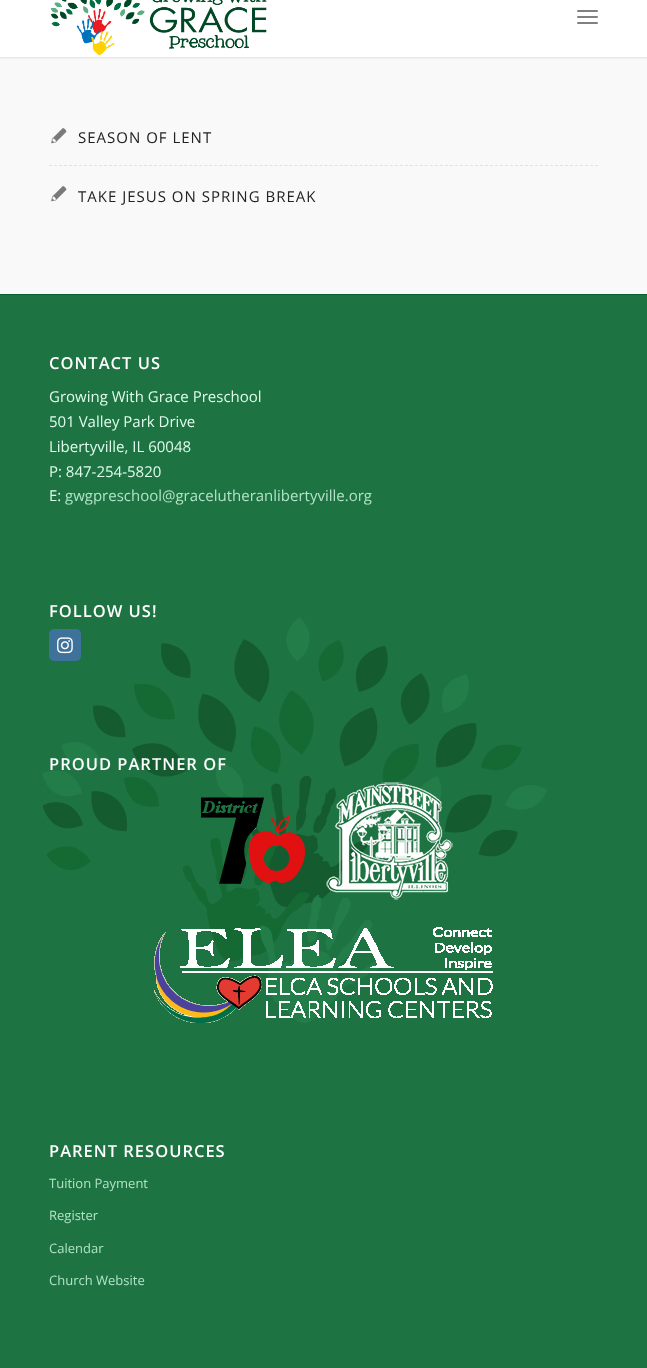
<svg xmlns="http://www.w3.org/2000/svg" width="647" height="1368">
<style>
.a{font:15px Open Sans;letter-spacing:1px;fill:#222}
.b{font:600 16.5px Open Sans;letter-spacing:1px;fill:#fff}
.c{font:15px Open Sans;fill:#e0fced}
.d{font:15px Open Sans;fill:#b1e3c8}
.e{font:13px Open Sans;fill:#b1e3c8}
</style>
<rect width="100%" height="100%" fill="#f9f9f9"/>
<path fill="#0000001a" filter="blur(1px)" d="M-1 -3h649v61H-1z"/>
<path fill="#fff" d="M0 0h647v57H0z"/>
<image href="1.png" x="50" y="0" width="217" height="55"/>
<rect fill="#808080" x="577" y="16" width="21" height="2" rx="1"/>
<rect fill="#808080" x="577" y="10" width="21" height="2" rx="1"/>
<rect fill="#808080" x="577" y="22" width="21" height="2" rx="1"/>
<path fill="none" stroke="#e1e1e1" stroke-dasharray="3 2.01" d="M49 165.5h549"/>
<image href="2.png" x="51" y="128" width="16" height="16"/>
<image href="2.png" x="51" y="186" width="16" height="16"/>
<path fill="#1d7341" d="M0 295h647v1073H0z"/>
<image href="3.png" x="42" y="617" width="505" height="406"/>
<path fill="#006032" d="M0 294h647v1H0z"/>
<rect fill="#3f729b" x="49" y="629" width="32" height="32" rx="5"/>
<image href="4.png" x="57" y="637" width="16" height="17"/>
<image href="5.png" x="201" y="797" width="104" height="87"/>
<image href="6.png" x="326" y="782" width="127" height="118"/>
<image href="7.png" x="154" y="927" width="339" height="96"/>
<text class="a" x="78" y="143">SEASON OF LENT</text>
<text class="a" x="78" y="202">TAKE JESUS ON SPRING BREAK</text>
<text class="b" x="49" y="369">CONTACT US</text>
<text class="c" x="49" y="402">Growing With Grace Preschool</text>
<text class="c" x="49" y="427">501 Valley Park Drive</text>
<text class="c" x="49" y="452">Libertyville, IL 60048</text>
<text class="c" x="49" y="477">P: 847-254-5820</text>
<text class="c" x="49" y="501">E:</text>
<text class="d" x="65" y="501">gwgpreschool@gracelutheranlibertyville.org</text>
<text class="b" x="49" y="617">FOLLOW US!</text>
<text class="b" x="49" y="770">PROUD PARTNER OF</text>
<text class="b" x="49" y="1157">PARENT RESOURCES</text>
<text class="e" x="49" y="1188">Tuition Payment</text>
<text class="e" x="49" y="1220">Register</text>
<text class="e" x="49" y="1253">Calendar</text>
<text class="e" x="49" y="1285">Church Website</text>
</svg>
